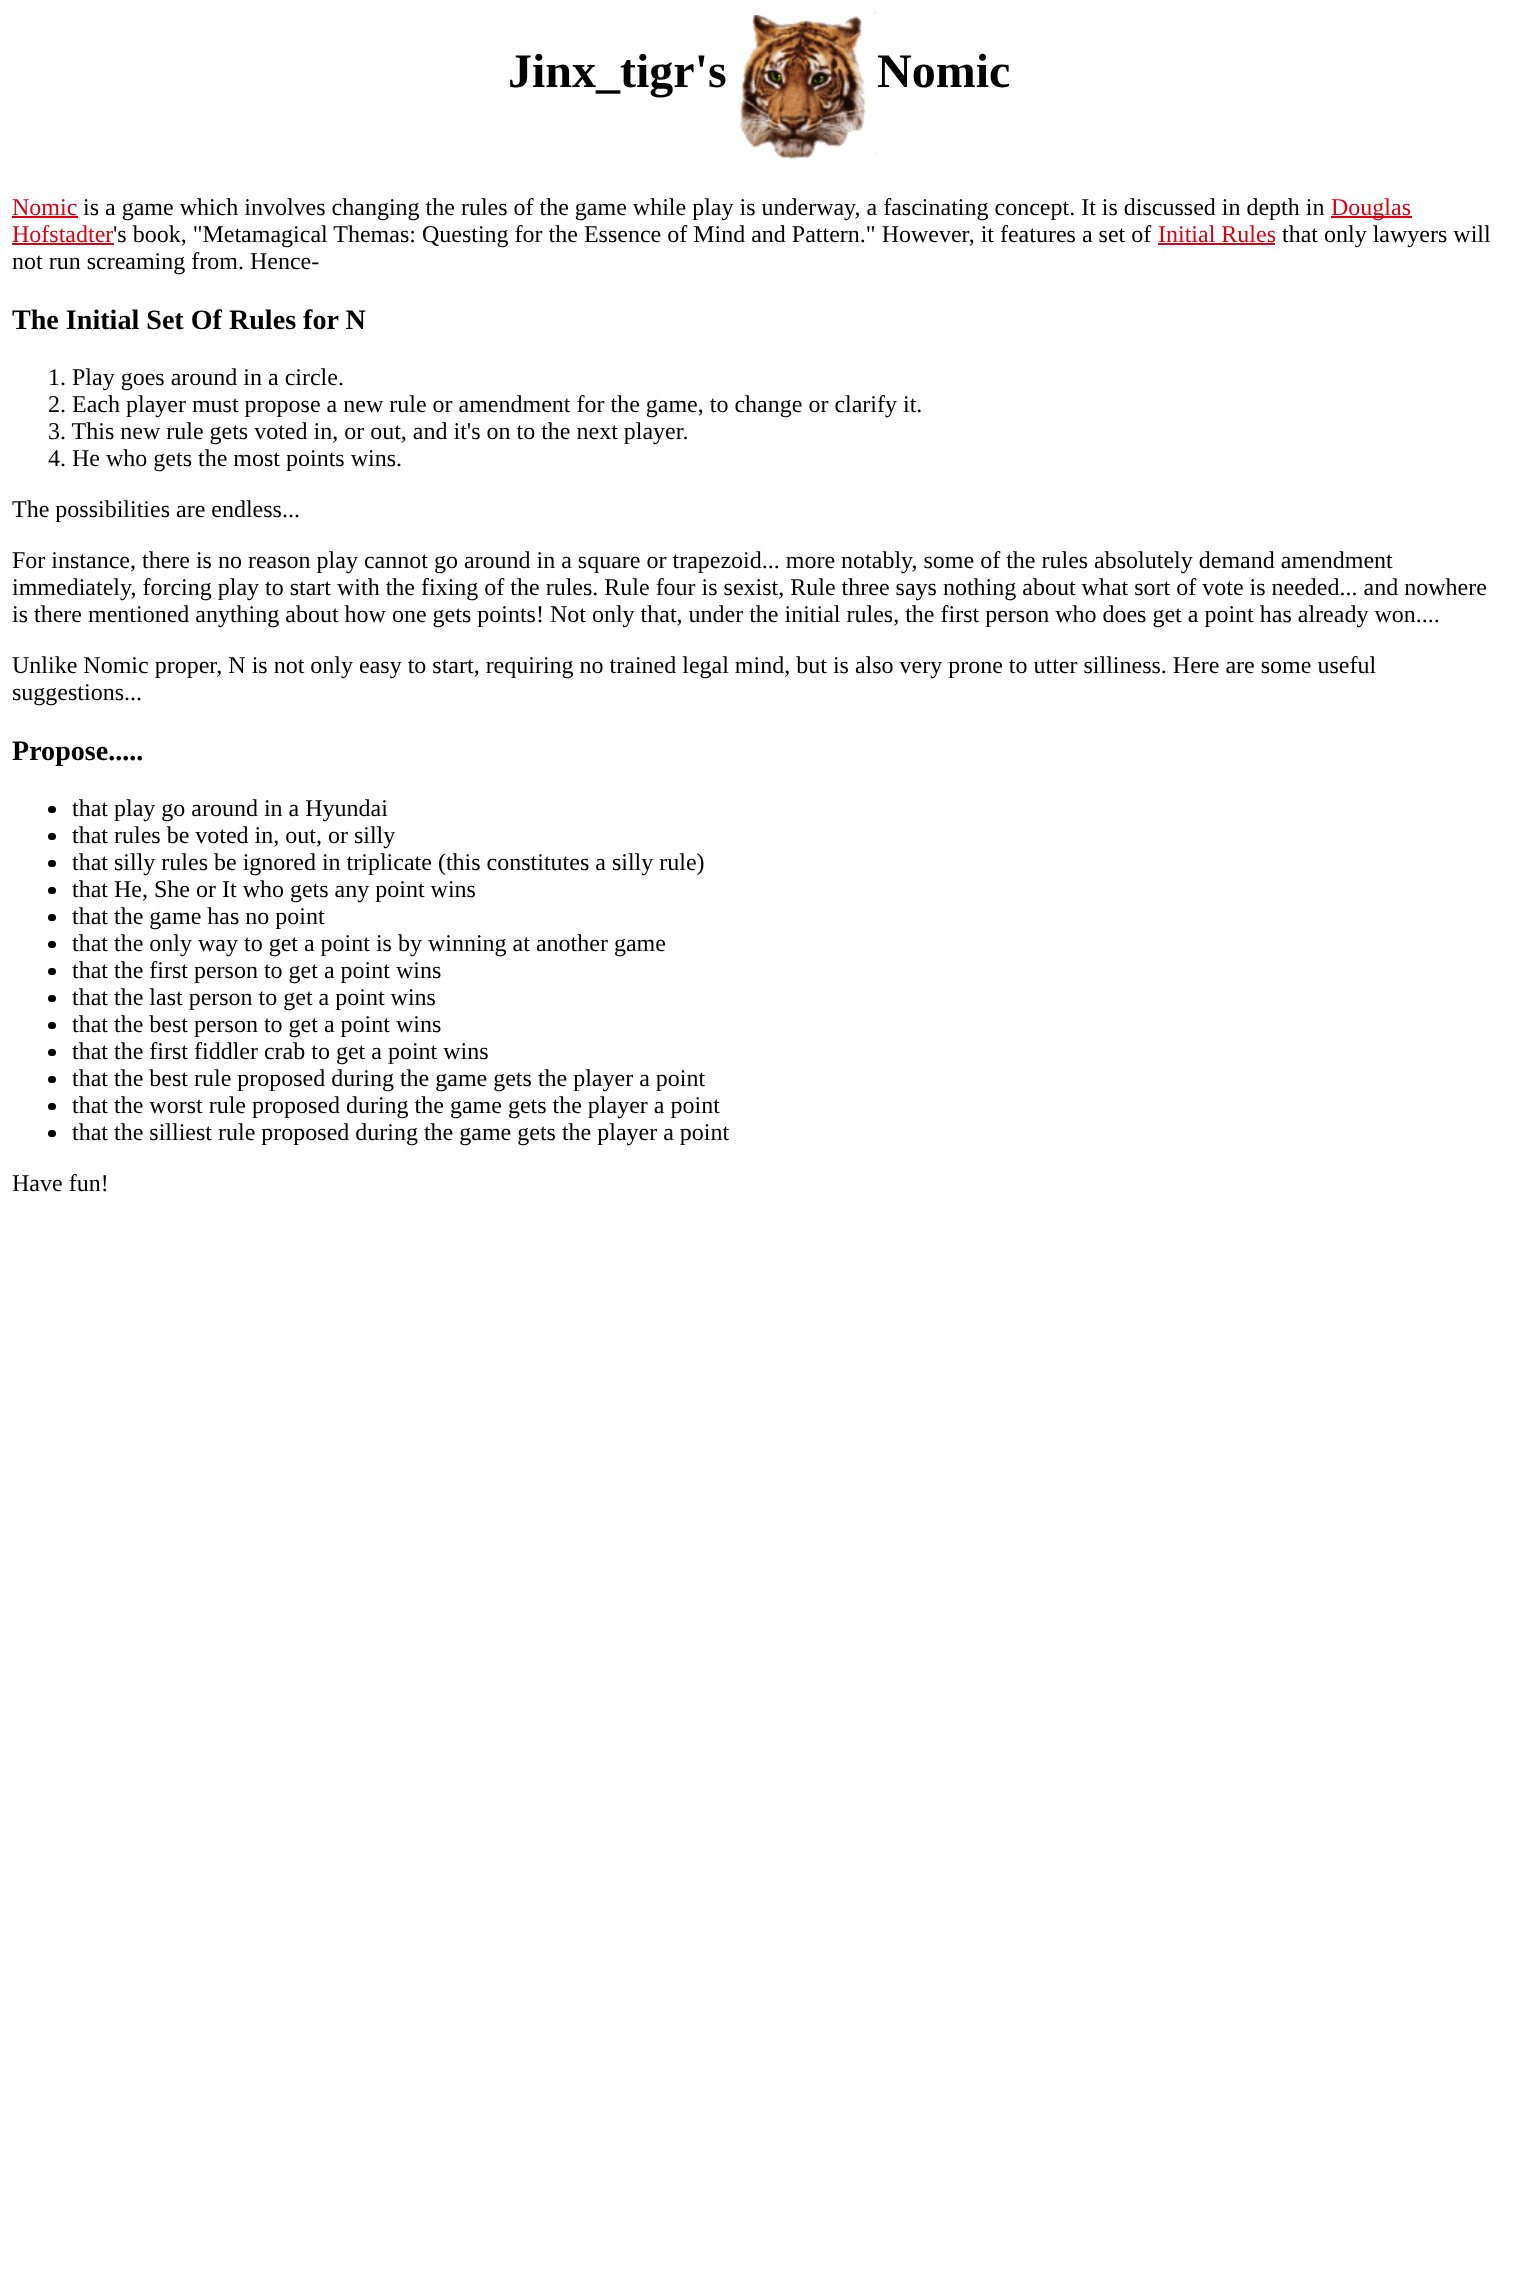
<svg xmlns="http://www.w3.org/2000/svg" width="1517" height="2275">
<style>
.a{font:bold 48px Liberation Serif;fill:#000}
.b{font:24px Liberation Serif;fill:#df0010}
.c{font:24px Liberation Serif;fill:#000}
.d{font:bold 28.1px Liberation Serif;fill:#000}
</style>
<rect width="100%" height="100%" fill="#fff"/>
<image href="1.png" x="739" y="12" width="137" height="148"/>
<path fill="#df0010" d="M12 216h66v2H12z"/>
<path fill="#df0010" d="M1331 216h81v2H1331z"/>
<path fill="#df0010" d="M12 243h102v2H12z"/>
<path fill="#df0010" d="M1158 243h117v2H1158z"/>
<rect fill="#000" x="48" y="806" width="8" height="7" rx="3.5"/>
<rect fill="#000" x="48" y="833" width="8" height="7" rx="3.5"/>
<rect fill="#000" x="48" y="860" width="8" height="7" rx="3.5"/>
<rect fill="#000" x="48" y="887" width="8" height="7" rx="3.5"/>
<rect fill="#000" x="48" y="914" width="8" height="7" rx="3.5"/>
<rect fill="#000" x="48" y="941" width="8" height="7" rx="3.5"/>
<rect fill="#000" x="48" y="968" width="8" height="7" rx="3.5"/>
<rect fill="#000" x="48" y="995" width="8" height="7" rx="3.5"/>
<rect fill="#000" x="48" y="1022" width="8" height="7" rx="3.5"/>
<rect fill="#000" x="48" y="1049" width="8" height="7" rx="3.5"/>
<rect fill="#000" x="48" y="1076" width="8" height="7" rx="3.5"/>
<rect fill="#000" x="48" y="1103" width="8" height="7" rx="3.5"/>
<rect fill="#000" x="48" y="1130" width="8" height="7" rx="3.5"/>
<text class="a" x="508" y="87">Jinx_tigr's</text>
<text class="a" x="877" y="87">Nomic</text>
<text class="b" x="12" y="215">Nomic</text>
<text class="c" x="83" y="215">is a game which involves changing the rules of the game while play is underway, a fascinating concept. It is discussed in depth in</text>
<text class="b" x="1331" y="215">Douglas</text>
<text class="b" x="12" y="242">Hofstadter</text>
<text class="c" x="113" y="242">'s book, "Metamagical Themas: Questing for the Essence of Mind and Pattern." However, it features a set of</text>
<text class="b" x="1158" y="242">Initial Rules</text>
<text class="c" x="1282" y="242">that only lawyers will</text>
<text class="c" x="12" y="269">not run screaming from. Hence-</text>
<text class="d" x="12" y="329">The Initial Set Of Rules for N</text>
<text class="c" x="48" y="385">1. Play goes around in a circle.</text>
<text class="c" x="48" y="412">2. Each player must propose a new rule or amendment for the game, to change or clarify it.</text>
<text class="c" x="48" y="439">3. This new rule gets voted in, or out, and it's on to the next player.</text>
<text class="c" x="48" y="466">4. He who gets the most points wins.</text>
<text class="c" x="12" y="517">The possibilities are endless...</text>
<text class="c" x="12" y="568">For instance, there is no reason play cannot go around in a square or trapezoid... more notably, some of the rules absolutely demand amendment</text>
<text class="c" x="12" y="595">immediately, forcing play to start with the fixing of the rules. Rule four is sexist, Rule three says nothing about what sort of vote is needed... and nowhere</text>
<text class="c" x="12" y="622">is there mentioned anything about how one gets points! Not only that, under the initial rules, the first person who does get a point has already won....</text>
<text class="c" x="12" y="673">Unlike Nomic proper, N is not only easy to start, requiring no trained legal mind, but is also very prone to utter silliness. Here are some useful</text>
<text class="c" x="12" y="700">suggestions...</text>
<text class="d" x="12" y="760">Propose.....</text>
<text class="c" x="72" y="816">that play go around in a Hyundai</text>
<text class="c" x="72" y="843">that rules be voted in, out, or silly</text>
<text class="c" x="72" y="870">that silly rules be ignored in triplicate (this constitutes a silly rule)</text>
<text class="c" x="72" y="897">that He, She or It who gets any point wins</text>
<text class="c" x="72" y="924">that the game has no point</text>
<text class="c" x="72" y="951">that the only way to get a point is by winning at another game</text>
<text class="c" x="72" y="978">that the first person to get a point wins</text>
<text class="c" x="72" y="1005">that the last person to get a point wins</text>
<text class="c" x="72" y="1032">that the best person to get a point wins</text>
<text class="c" x="72" y="1059">that the first fiddler crab to get a point wins</text>
<text class="c" x="72" y="1086">that the best rule proposed during the game gets the player a point</text>
<text class="c" x="72" y="1113">that the worst rule proposed during the game gets the player a point</text>
<text class="c" x="72" y="1140">that the silliest rule proposed during the game gets the player a point</text>
<text class="c" x="12" y="1191">Have fun!</text>
</svg>
